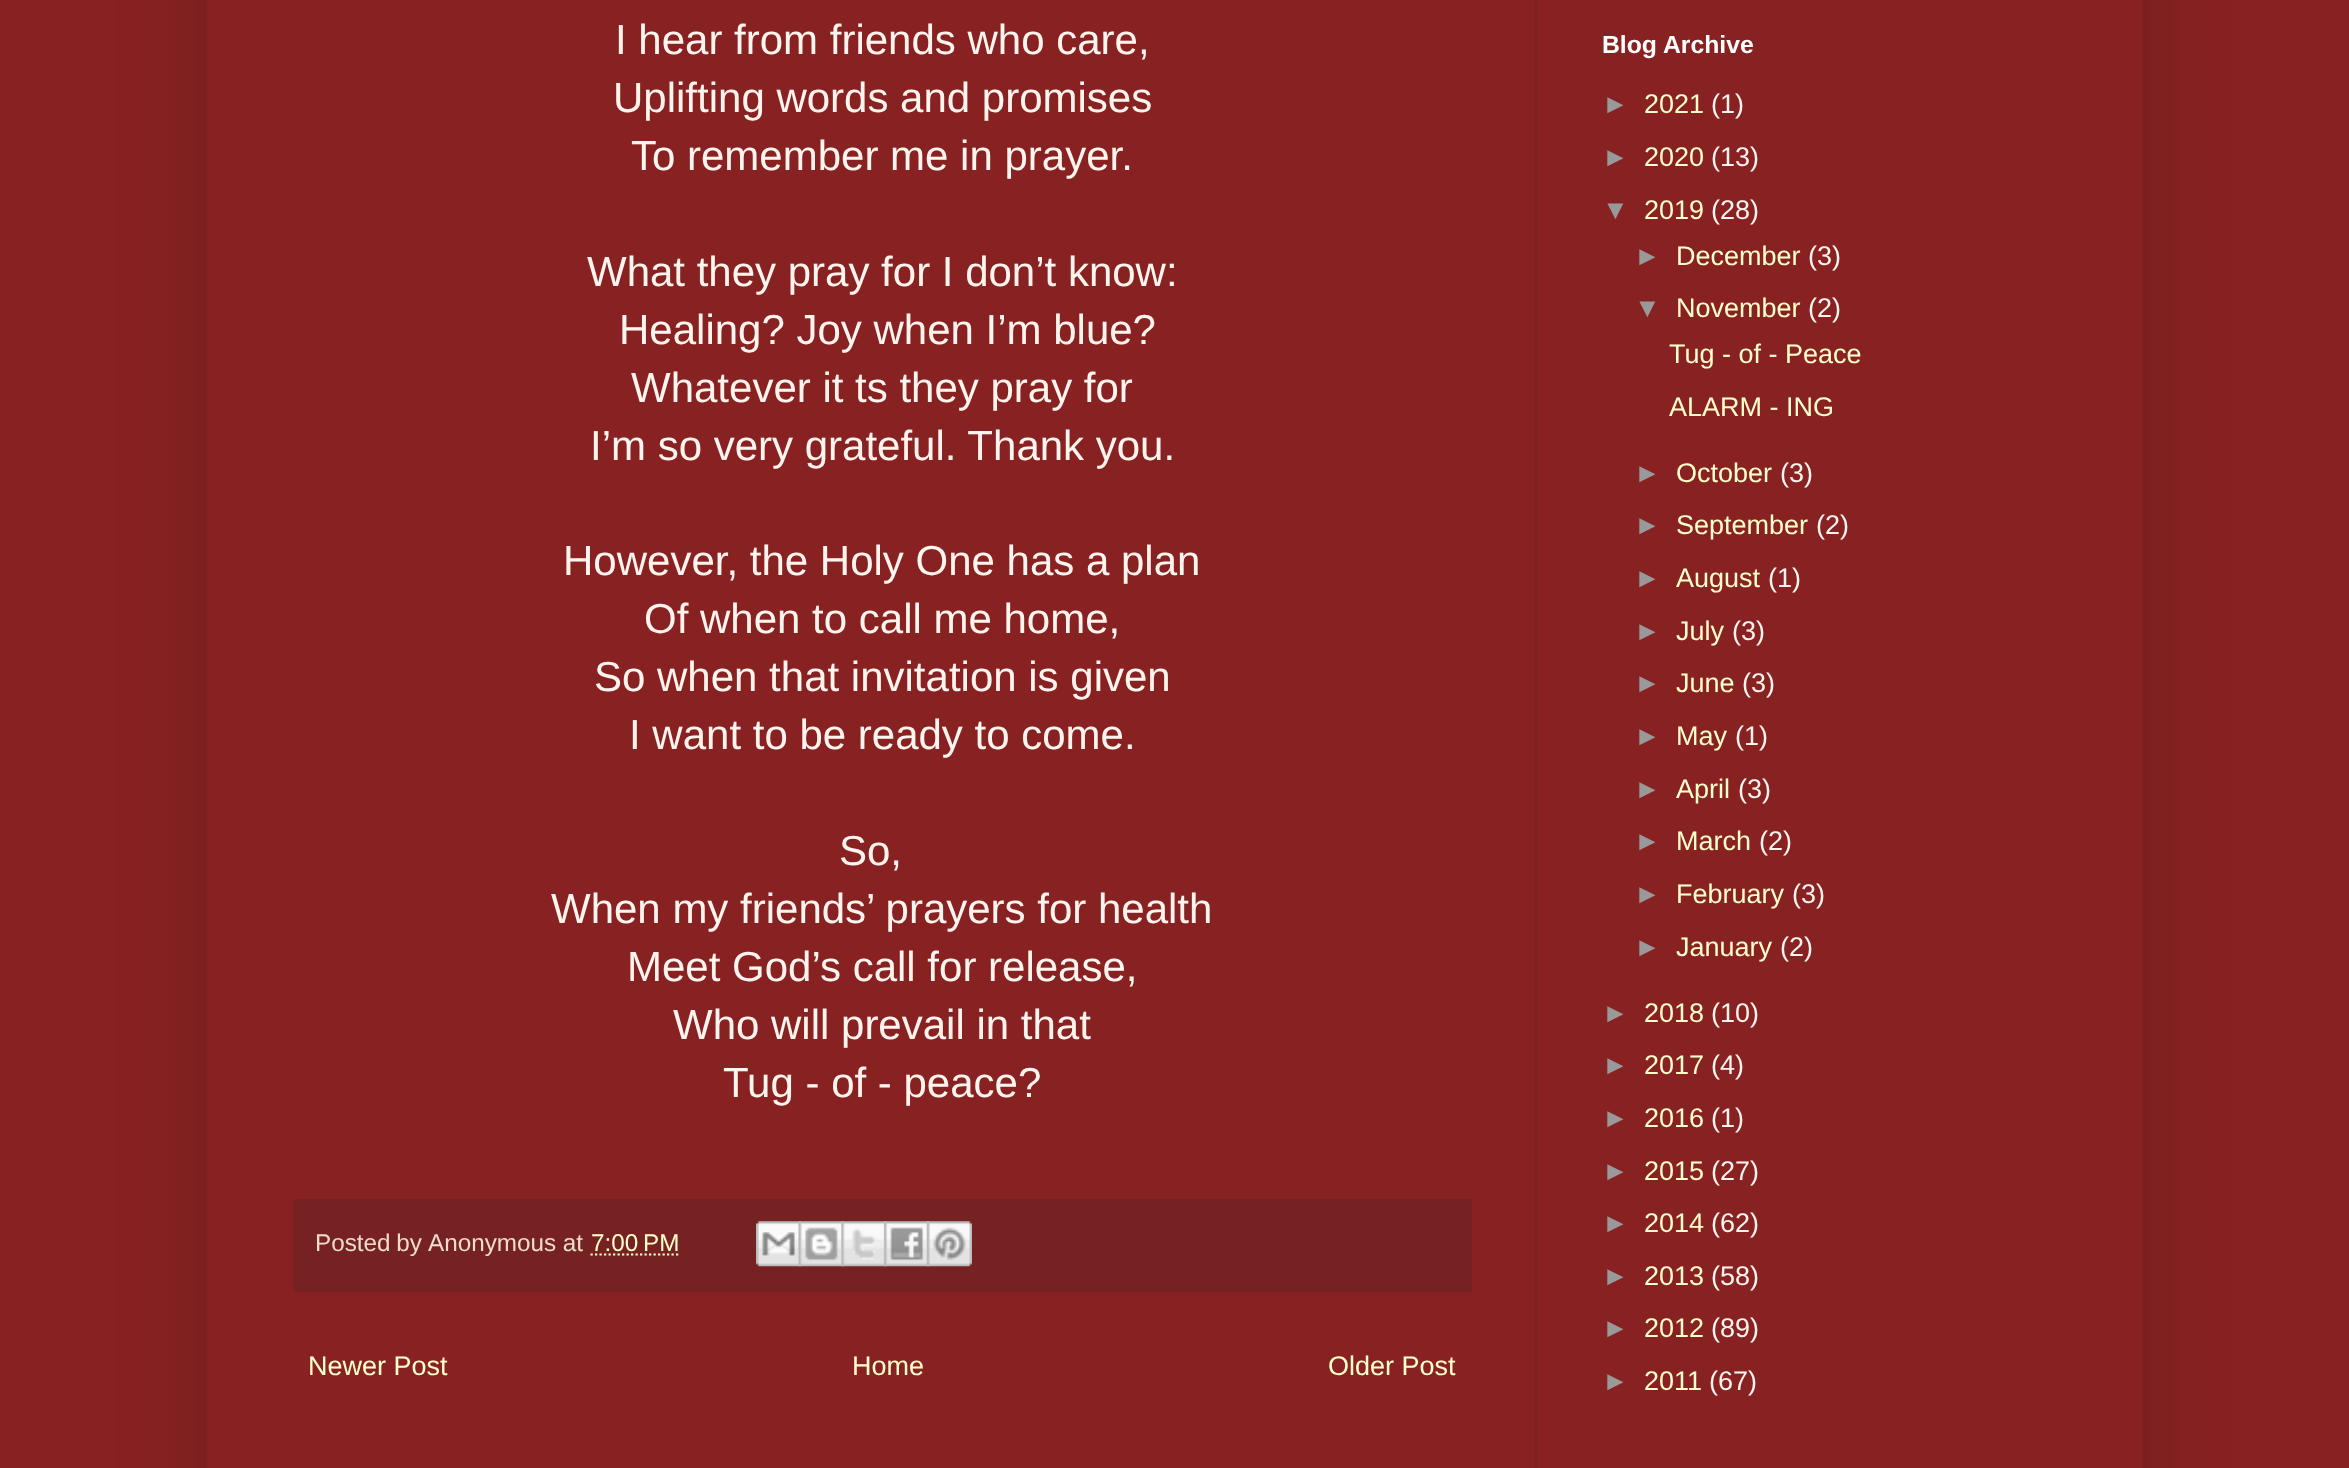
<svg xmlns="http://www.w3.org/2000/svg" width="2349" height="1468">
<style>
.a{font:42px Liberation Sans;fill:#fff5ee}
.b{font:24.25px Liberation Sans;fill:#edc}
.c{font:24.25px Liberation Sans;fill:#ffc}
.d{font:27px Liberation Sans;fill:#ffc}
.e{font:bold 24.75px Liberation Sans;fill:#fff}
.f{font:27px Liberation Sans;fill:#999}
.g{font:27px Liberation Sans;fill:#fff5ee}
</style>
<defs>
<clipPath id="clip1"><path d="M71 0h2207v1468h-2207zm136-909h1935v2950h-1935z" clip-rule="evenodd"/></clipPath>
</defs>
<rect width="100%" height="100%" fill="#822"/>
<g clip-path="url(#clip1)">
<path fill="#00000026" filter="blur(45px)" d="M207 -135h1935v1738H207z"/>
</g>
<path fill="#722" d="M1535 0h2v1468H1535z"/>
<path fill="#722" d="M293 1199h1179v93H293z"/>
<path fill="none" stroke="#ffc" stroke-width="2.2" stroke-dasharray="2.25 2.25" d="M590.5 1254.5h88.5"/>
<image href="1.png" x="756" y="1221" width="45" height="46"/>
<image href="2.png" x="798" y="1221" width="46" height="46"/>
<image href="3.png" x="841" y="1221" width="46" height="46"/>
<image href="4.png" x="884" y="1221" width="46" height="46"/>
<image href="5.png" x="927" y="1221" width="45" height="46"/>
<text class="a" x="615" y="54">I hear from friends who care,</text>
<text class="a" x="613" y="112">Uplifting words and promises</text>
<text class="a" x="631" y="170">To remember me in prayer.</text>
<text class="a" x="587" y="286">What they pray for I don’t know:</text>
<text class="a" x="619" y="344">Healing? Joy when I’m blue?</text>
<text class="a" x="631" y="402">Whatever it ts they pray for</text>
<text class="a" x="590" y="460">I’m so very grateful. Thank you.</text>
<text class="a" x="563" y="575">However, the Holy One has a plan</text>
<text class="a" x="644" y="633">Of when to call me home,</text>
<text class="a" x="594" y="691">So when that invitation is given</text>
<text class="a" x="629" y="749">I want to be ready to come.</text>
<text class="a" x="839" y="865">So,</text>
<text class="a" x="551" y="923">When my friends’ prayers for health</text>
<text class="a" x="627" y="981">Meet God’s call for release,</text>
<text class="a" x="673" y="1039">Who will prevail in that</text>
<text class="a" x="723" y="1097">Tug - of - peace?</text>
<text class="b" x="315" y="1251" word-spacing="-1">Posted by</text>
<text class="b" x="428" y="1251">Anonymous at</text>
<text class="c" x="591" y="1251">7:00 PM</text>
<text class="d" x="308" y="1375">Newer Post</text>
<text class="d" x="852" y="1375">Home</text>
<text class="d" x="1328" y="1375">Older Post</text>
<text class="e" x="1602" y="53">Blog Archive</text>
<text class="f" x="1602" y="113">►</text>
<text class="d" x="1644" y="113">2021</text>
<text class="g" x="1711" y="113">(1)</text>
<text class="f" x="1602" y="166">►</text>
<text class="d" x="1644" y="166">2020</text>
<text class="g" x="1711" y="166">(13)</text>
<text class="f" x="1602" y="219">▼</text>
<text class="d" x="1644" y="219">2019</text>
<text class="g" x="1711" y="219">(28)</text>
<text class="f" x="1634" y="265">►</text>
<text class="d" x="1676" y="265">December</text>
<text class="g" x="1808" y="265">(3)</text>
<text class="f" x="1634" y="317">▼</text>
<text class="d" x="1676" y="317">November</text>
<text class="g" x="1808" y="317">(2)</text>
<text class="d" x="1669" y="363">Tug - of - Peace</text>
<text class="d" x="1669" y="416">ALARM - ING</text>
<text class="f" x="1634" y="482">►</text>
<text class="d" x="1676" y="482">October</text>
<text class="g" x="1780" y="482">(3)</text>
<text class="f" x="1634" y="534">►</text>
<text class="d" x="1676" y="534">September</text>
<text class="g" x="1816" y="534">(2)</text>
<text class="f" x="1634" y="587">►</text>
<text class="d" x="1676" y="587">August</text>
<text class="g" x="1768" y="587">(1)</text>
<text class="f" x="1634" y="640">►</text>
<text class="d" x="1676" y="640">July</text>
<text class="g" x="1732" y="640">(3)</text>
<text class="f" x="1634" y="692">►</text>
<text class="d" x="1676" y="692">June</text>
<text class="g" x="1742" y="692">(3)</text>
<text class="f" x="1634" y="745">►</text>
<text class="d" x="1676" y="745">May</text>
<text class="g" x="1735" y="745">(1)</text>
<text class="f" x="1634" y="798">►</text>
<text class="d" x="1676" y="798">April</text>
<text class="g" x="1738" y="798">(3)</text>
<text class="f" x="1634" y="850">►</text>
<text class="d" x="1676" y="850">March</text>
<text class="g" x="1759" y="850">(2)</text>
<text class="f" x="1634" y="903">►</text>
<text class="d" x="1676" y="903">February</text>
<text class="g" x="1792" y="903">(3)</text>
<text class="f" x="1634" y="956">►</text>
<text class="d" x="1676" y="956">January</text>
<text class="g" x="1780" y="956">(2)</text>
<text class="f" x="1602" y="1022">►</text>
<text class="d" x="1644" y="1022">2018</text>
<text class="g" x="1711" y="1022">(10)</text>
<text class="f" x="1602" y="1074">►</text>
<text class="d" x="1644" y="1074">2017</text>
<text class="g" x="1711" y="1074">(4)</text>
<text class="f" x="1602" y="1127">►</text>
<text class="d" x="1644" y="1127">2016</text>
<text class="g" x="1711" y="1127">(1)</text>
<text class="f" x="1602" y="1180">►</text>
<text class="d" x="1644" y="1180">2015</text>
<text class="g" x="1711" y="1180">(27)</text>
<text class="f" x="1602" y="1232">►</text>
<text class="d" x="1644" y="1232">2014</text>
<text class="g" x="1711" y="1232">(62)</text>
<text class="f" x="1602" y="1285">►</text>
<text class="d" x="1644" y="1285">2013</text>
<text class="g" x="1711" y="1285">(58)</text>
<text class="f" x="1602" y="1337">►</text>
<text class="d" x="1644" y="1337">2012</text>
<text class="g" x="1711" y="1337">(89)</text>
<text class="f" x="1602" y="1390">►</text>
<text class="d" x="1644" y="1390">2011</text>
<text class="g" x="1709" y="1390">(67)</text>
</svg>
